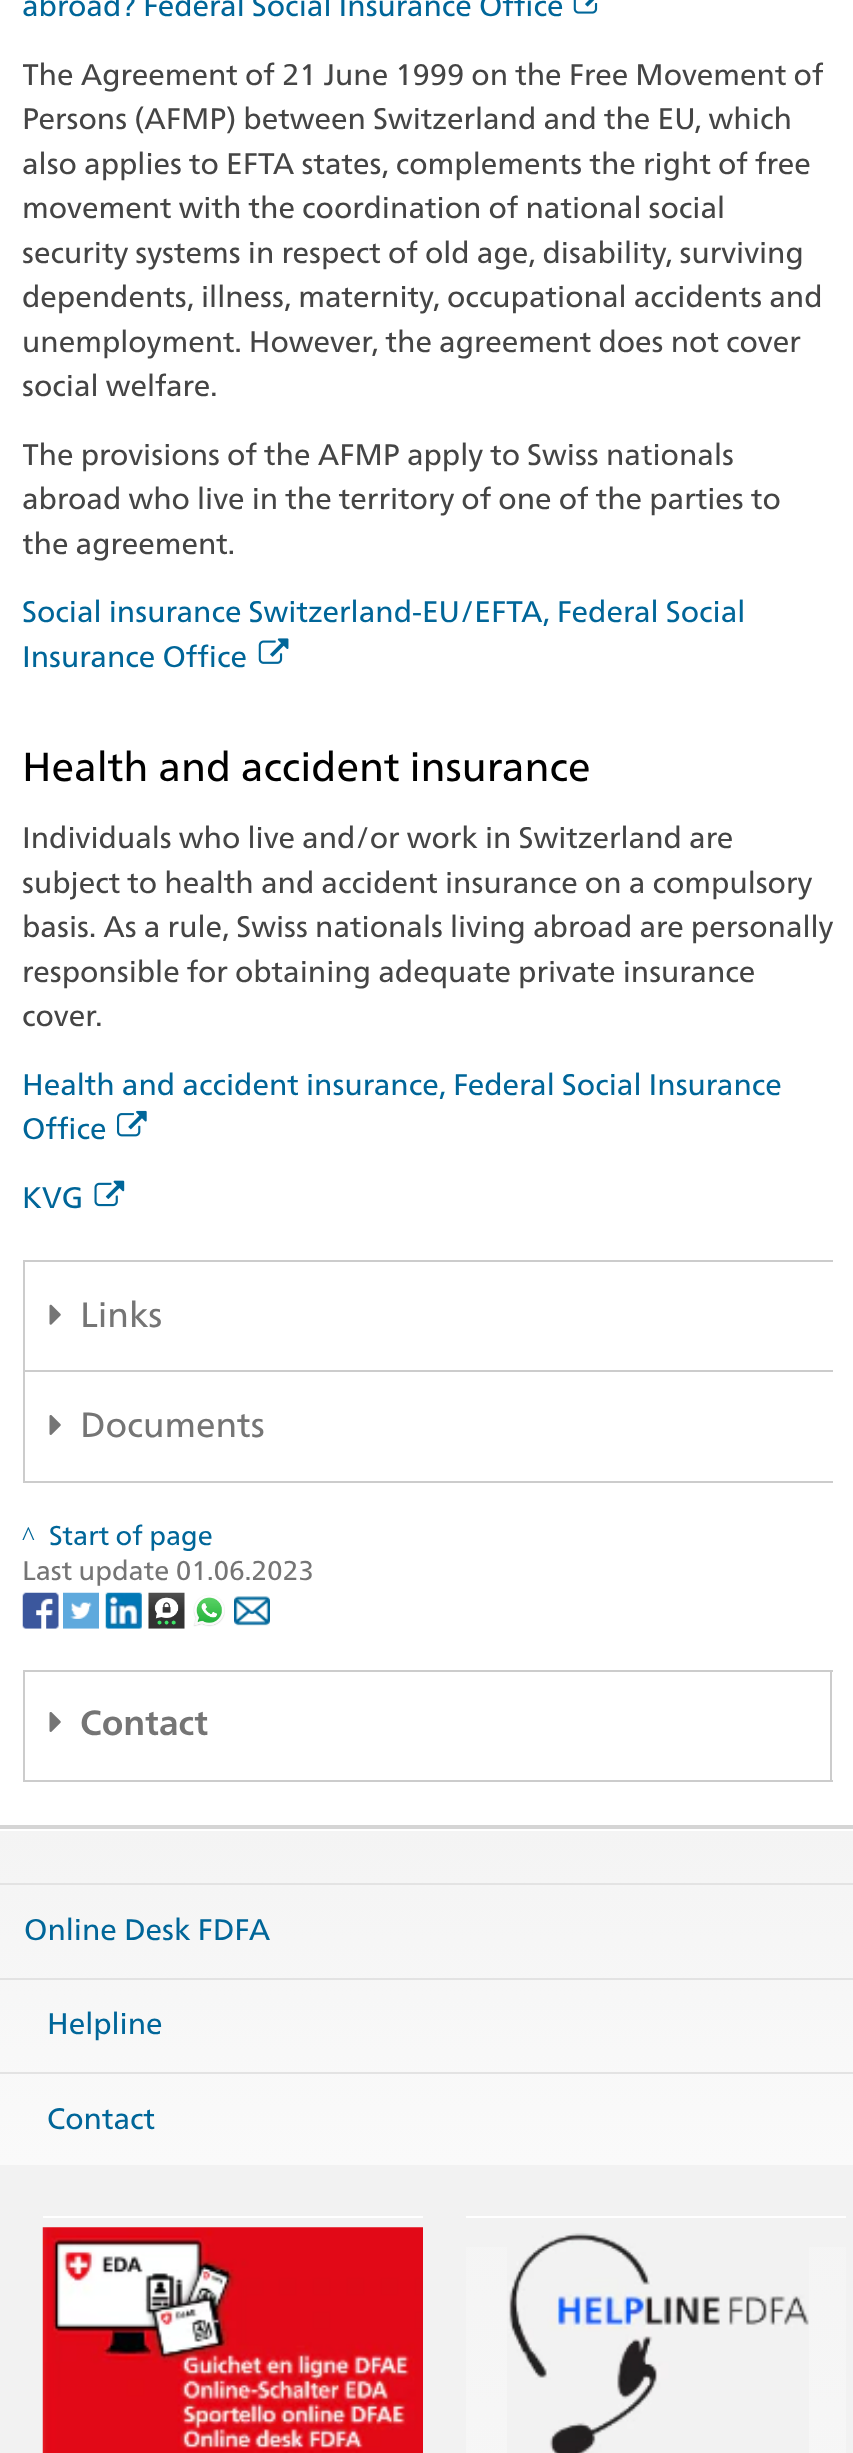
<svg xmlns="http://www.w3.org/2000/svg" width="853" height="2453">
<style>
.a{font:29.7px 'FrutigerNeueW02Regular';fill:#069}
.b{font:29.7px 'FrutigerNeueW02Regular';fill:#454545}
.c{font:40.5px 'FrutigerNeueW02Regular';fill:#000}
.d{font:35px 'FrutigerNeueW02Regular';fill:#757575}
.e{font:27px Liberation Serif;fill:#069}
.f{font:27px 'FrutigerNeueW02Regular';fill:#069}
.g{font:27px 'FrutigerNeueW02Regular';fill:#757575}
.h{font:bold 35px 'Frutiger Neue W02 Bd';fill:#757575}
</style>
<defs>
<linearGradient id="g1" gradientUnits="userSpaceOnUse" x1="428" y1="1829" x2="428" y2="2165"><stop offset="0" stop-color="#f4f4f4"/><stop offset="1" stop-color="#fafafa"/></linearGradient>
<linearGradient id="g2" gradientUnits="userSpaceOnUse" x1="656" y1="2192" x2="656" y2="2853"><stop offset="0" stop-color="#f4f4f4"/><stop offset="1" stop-color="#fafafa"/></linearGradient>
<clipPath id="clip1"><path d="M23 0h810v680H23z"/></clipPath>
<clipPath id="clip2"><path d="M23 680h810v540H23z"/></clipPath>
</defs>
<rect width="100%" height="100%" fill="#fff"/>
<image href="1.png" x="573" y="0" width="25" height="14"/>
<image href="2.png" x="258" y="638" width="31" height="26"/>
<image href="3.png" x="117" y="1110" width="30" height="27"/>
<image href="4.png" x="94" y="1180" width="31" height="27"/>
<path fill="#ccc" d="M23 1481h810v2H23z"/>
<path fill="#ccc" d="M23 1260h810v2H23z"/>
<path fill="#ccc" d="M23 1260h2v110H23z"/>
<image href="5.png" x="49" y="1304" width="12" height="21"/>
<path fill="#ccc" d="M23 1370h810v2H23z"/>
<path fill="#ccc" d="M23 1370h2v111H23z"/>
<image href="6.png" x="49" y="1415" width="12" height="20"/>
<image href="7.png" x="22" y="1592" width="37" height="37"/>
<image href="8.png" x="63" y="1592" width="36" height="37"/>
<image href="9.png" x="105" y="1592" width="37" height="37"/>
<image href="10.png" x="148" y="1592" width="37" height="37"/>
<image href="11.png" x="193" y="1595" width="32" height="32"/>
<image href="12.png" x="234" y="1596" width="36" height="30"/>
<path fill="#ccc" d="M23 1780h810v2H23z"/>
<path fill="#ccc" d="M23 1670h810v2H23z"/>
<path fill="#ccc" d="M830 1670h2v110H830z"/>
<path fill="#ccc" d="M23 1670h2v110H23z"/>
<image href="6.png" x="49" y="1712" width="12" height="20"/>
<path fill="#f2f2f2" d="M0 2165h853v288H0z"/>
<path fill="#d5d5d5" d="M0 1825h853v4H0z"/>
<path fill="url(#g1)" d="M0 1831h853v334H0z"/>
<path fill="#e3e3e3" d="M0 1883h853v2H0z"/>
<path fill="#e3e3e3" d="M0 1978h853v2H0z"/>
<path fill="#e3e3e3" d="M0 2072h853v2H0z"/>
<path fill="#fff" d="M43 2216h380v2H43z"/>
<image href="13.png" x="42" y="2227" width="381" height="226"/>
<path fill="url(#g2)" d="M466 2247h380v206H466z"/>
<path fill="#fff" d="M466 2216h380v2H466z"/>
<image href="14.png" x="507" y="2231" width="302" height="222"/>
<text class="a" x="22" y="16">abroad? Federal Social Insurance Office</text>
<g clip-path="url(#clip1)">
<text class="b" x="22" y="85">The Agreement of 21 June 1999 on the Free Movement of</text>
</g>
<text class="b" x="22" y="129">Persons (AFMP) between Switzerland and the EU, which</text>
<text class="b" x="22" y="174">also applies to EFTA states, complements the right of free</text>
<text class="b" x="22" y="218">movement with the coordination of national social</text>
<g clip-path="url(#clip1)">
<text class="b" x="22" y="263">security systems in respect of old age, disability, surviving</text>
</g>
<text class="b" x="22" y="307">dependents, illness, maternity, occupational accidents and</text>
<text class="b" x="22" y="352">unemployment. However, the agreement does not cover</text>
<g clip-path="url(#clip1)">
<text class="b" x="22" y="396">social welfare.</text>
<text class="b" x="22" y="465">The provisions of the AFMP apply to Swiss nationals</text>
</g>
<text class="b" x="22" y="509">abroad who live in the territory of one of the parties to</text>
<g clip-path="url(#clip1)">
<text class="b" x="22" y="554">the agreement.</text>
</g>
<text class="a" x="22" y="622">Social insurance Switzerland-EU/EFTA, Federal Social</text>
<text class="a" x="22" y="667">Insurance Office</text>
<text class="c" x="22" y="781">Health and accident insurance</text>
<text class="b" x="22" y="848">Individuals who live and/or work in Switzerland are</text>
<g clip-path="url(#clip2)">
<text class="b" x="22" y="893">subject to health and accident insurance on a compulsory</text>
</g>
<text class="b" x="22" y="937">basis. As a rule, Swiss nationals living abroad are personally</text>
<text class="b" x="22" y="982">responsible for obtaining adequate private insurance</text>
<text class="b" x="22" y="1026">cover.</text>
<text class="a" x="22" y="1095">Health and accident insurance, Federal Social Insurance</text>
<text class="a" x="22" y="1139">Office</text>
<text class="a" x="22" y="1208">KVG</text>
<text class="d" x="80" y="1327">Links</text>
<text class="d" x="80" y="1437">Documents</text>
<text class="e" x="22" y="1545">^</text>
<text class="f" x="49" y="1545">Start of page</text>
<text class="g" x="22" y="1580">Last update 01.06.2023</text>
<text class="h" x="80" y="1735">Contact</text>
<text class="a" x="24" y="1940">Online Desk FDFA</text>
<text class="a" x="47" y="2034">Helpline</text>
<text class="a" x="47" y="2129">Contact</text>
</svg>
